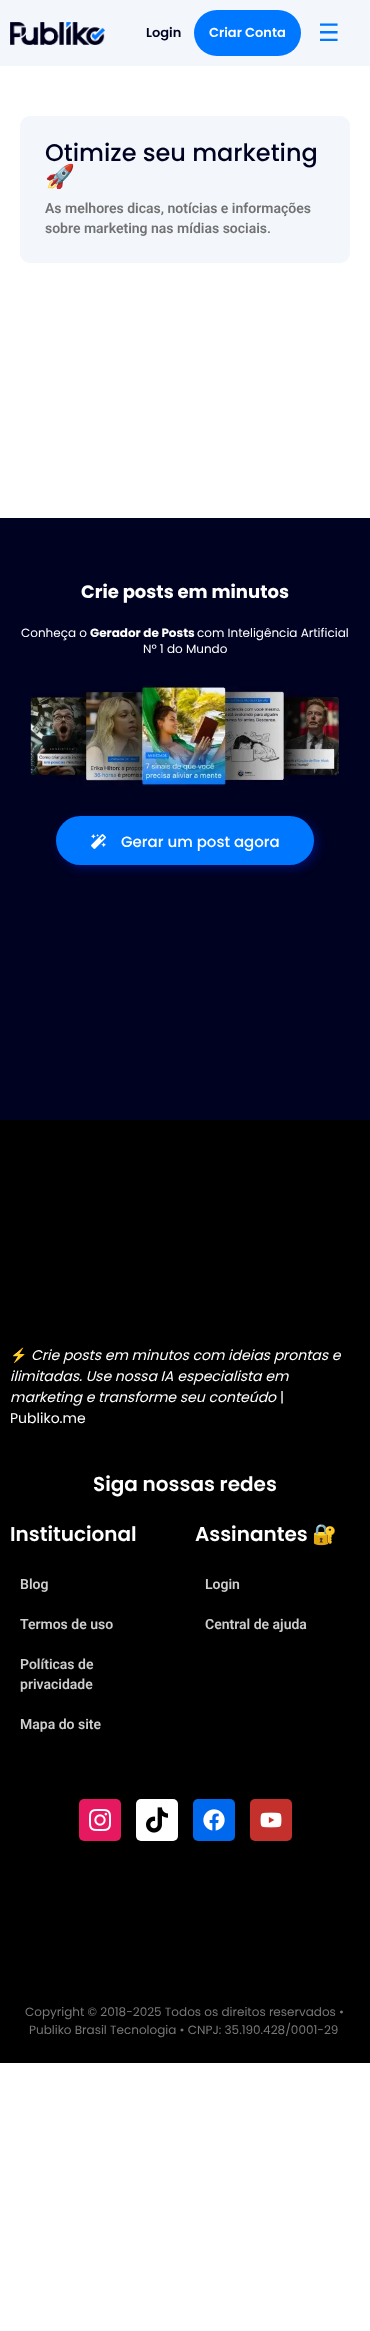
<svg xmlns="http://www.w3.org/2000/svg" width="370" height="2331">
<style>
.a{font:600 13px Poppins;fill:#000222}
.b{font:600 13px Poppins;fill:#fff}
.c{font:24px DejaVu Sans;fill:#07f}
.d{font:500 24px Poppins;fill:#000222}
.e{font:24px Noto Color Emoji;fill:#000222}
.f{font:600 14px Roboto;fill:#727272}
.g{font:bold 18px Poppins;fill:#fff}
.h{font:12px Poppins;fill:#fff}
.i{font:bold 12px Poppins;fill:#fff}
.j{font:500 15px Poppins;fill:#fff}
.k{font:14px Noto Color Emoji;fill:#fff}
.l{font:italic 14px Poppins;fill:#fff}
.m{font:14px Poppins;fill:#fff}
.n{font:600 20px Poppins;fill:#fff}
.o{font:600 14px Roboto;fill:#cecece}
.p{font:bold 20px Noto Color Emoji;fill:#fff}
.q{font:12px Poppins;fill:#787878}
</style>
<rect width="100%" height="100%" fill="#fff"/>
<path fill="#f3f7fc" d="M0 0h370v66H0z"/>
<image href="1.png" x="10" y="22" width="95" height="23"/>
<rect fill="#07f" x="194" y="10" width="107" height="46" rx="23"/>
<path fill="#f3f7fc" d="M30 116h310c5.5 0 10 4.5 10 10v63h-330v-63c0-5.5 4.5-10 10-10z"/>
<path fill="#000222" d="M0 518h370v602H0z"/>
<image href="2.png" x="30" y="686" width="310" height="100"/>
<rect fill="#0227f857" filter="blur(5px)" x="59" y="819" width="258" height="49" rx="24.5"/>
<rect fill="#07f" x="56" y="816" width="258" height="49" rx="24.5"/>
<image href="3.png" x="91" y="834" width="15" height="15"/>
<path fill="#000" d="M0 1120h370v943H0z"/>
<rect fill="#e61860" x="79" y="1799" width="42" height="42" rx="5"/>
<image href="4.png" x="89" y="1809" width="22" height="22"/>
<rect fill="#fff" x="136" y="1799" width="42" height="42" rx="5"/>
<image href="5.png" x="146" y="1807" width="22" height="26"/>
<rect fill="#0068ed" x="193" y="1799" width="42" height="42" rx="5"/>
<image href="6.png" x="203" y="1809" width="22" height="22"/>
<rect fill="#c4302b" x="250" y="1799" width="42" height="42" rx="5"/>
<image href="7.png" x="260" y="1812" width="22" height="16"/>
<text class="a" x="146" y="37">Login</text>
<text class="b" x="209" y="37">Criar Conta</text>
<text class="c" x="318" y="41">☰</text>
<text class="d" x="45" y="161">Otimize seu marketing</text>
<text class="e" x="45" y="185">🚀</text>
<path fill="#f3f7fc" d="M20 189h330v64c0 5.5-4.5 10-10 10h-310c-5.5 0-10-4.5-10-10z"/>
<text class="f" x="45" y="213">As melhores dicas, notícias e informações</text>
<text class="f" x="45" y="233">sobre marketing nas mídias sociais.</text>
<text class="g" x="81" y="598">Crie posts em minutos</text>
<text class="h" x="21" y="637">Conheça o</text>
<text class="i" x="90" y="637">Gerador de Posts</text>
<text class="h" x="197" y="637">com Inteligência Artificial</text>
<text class="h" x="143" y="653">Nº 1 do Mundo</text>
<text class="j" x="121" y="847">Gerar um post agora</text>
<text class="k" x="10" y="1360">⚡</text>
<text class="l" x="31" y="1360">Crie posts em minutos com ideias prontas e</text>
<text class="l" x="10" y="1381">ilimitadas. Use nossa IA especialista em</text>
<text class="l" x="10" y="1402">marketing e transforme seu conteúdo</text>
<text class="m" x="280" y="1402">|</text>
<text class="m" x="10" y="1423">Publiko.me</text>
<text class="n" x="93" y="1491">Siga nossas redes</text>
<text class="n" x="10" y="1541">Institucional</text>
<text class="o" x="20" y="1589">Blog</text>
<text class="o" x="20" y="1629">Termos de uso</text>
<text class="o" x="20" y="1669">Políticas de</text>
<text class="o" x="20" y="1689">privacidade</text>
<text class="o" x="20" y="1729">Mapa do site</text>
<text class="n" x="195" y="1541">Assinantes</text>
<text class="p" x="312" y="1541">🔐</text>
<text class="o" x="205" y="1589">Login</text>
<text class="o" x="205" y="1629">Central de ajuda</text>
<text class="q" x="25" y="2016">Copyright © 2018-2025 Todos os direitos reservados •</text>
<text class="q" x="29" y="2034">Publiko Brasil Tecnologia • CNPJ: 35.190.428/0001-29</text>
</svg>
